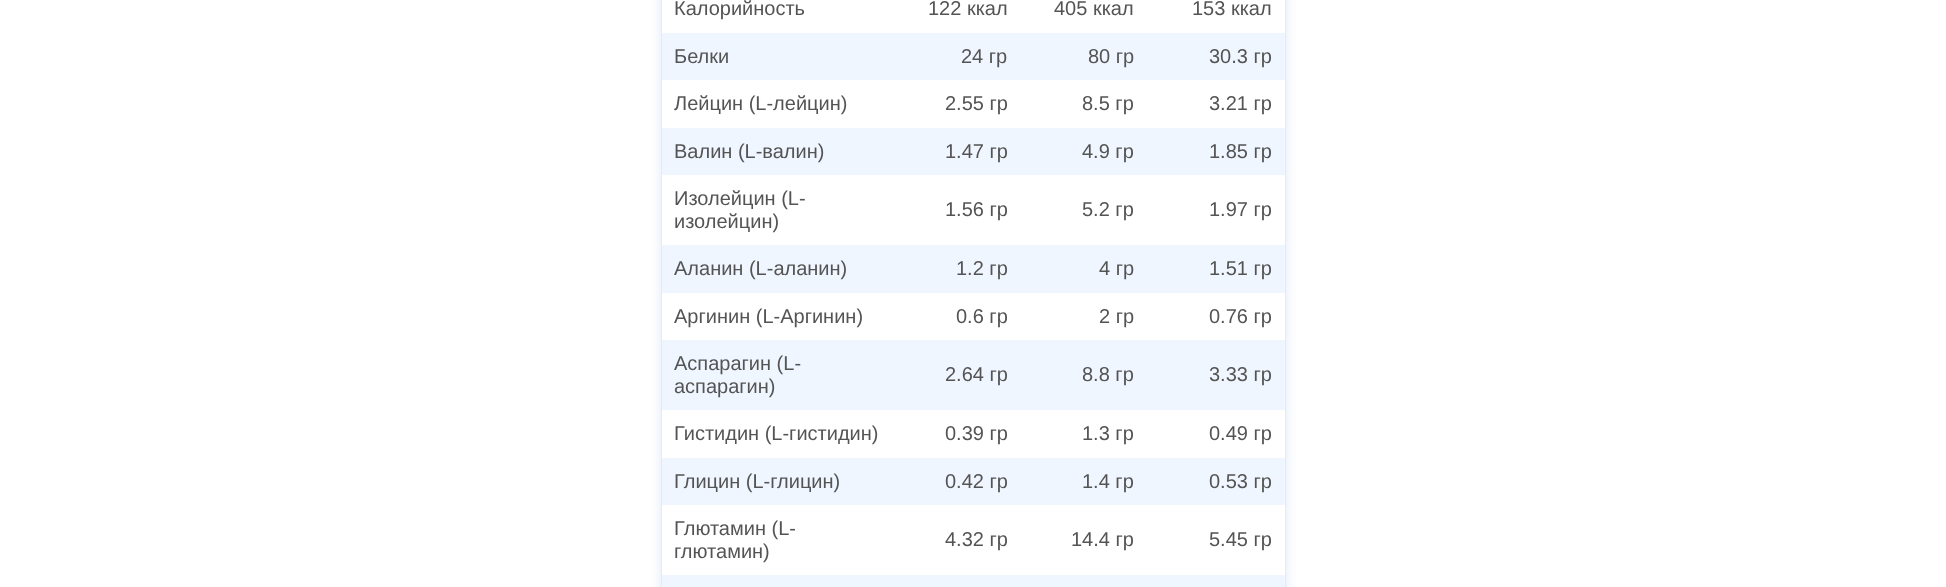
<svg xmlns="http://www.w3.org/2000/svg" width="1946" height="587">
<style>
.a{font:20px Liberation Sans;fill:#545454}
</style>
<rect width="100%" height="100%" fill="#fff"/>
<rect fill="#5981cc2e" filter="blur(6px)" x="661" y="-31" width="625" height="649" rx="13"/>
<path fill="#fff" d="M662 0h623v575H662z"/>
<path fill="#eaeaea" d="M1285 0h1v587H1285z"/>
<path fill="#eaeaea" d="M661 0h1v587H661z"/>
<path fill="#f0f6ff" d="M662 33h623v47H662z"/>
<path fill="#f0f6ff" d="M662 128h623v47H662z"/>
<path fill="#f0f6ff" d="M662 245h623v48H662z"/>
<path fill="#f0f6ff" d="M662 340h623v70H662z"/>
<path fill="#f0f6ff" d="M662 458h623v47H662z"/>
<path fill="#f0f6ff" d="M662 575h623v12H662z"/>
<text class="a" x="674" y="15">Калорийность</text>
<text class="a" x="928" y="15">122 ккал</text>
<text class="a" x="1054" y="15">405 ккал</text>
<text class="a" x="1192" y="15">153 ккал</text>
<text class="a" x="674" y="63">Белки</text>
<text class="a" x="961" y="63">24 гр</text>
<text class="a" x="1088" y="63">80 гр</text>
<text class="a" x="1209" y="63">30.3 гр</text>
<text class="a" x="674" y="110">Лейцин (L-лейцин)</text>
<text class="a" x="945" y="110">2.55 гр</text>
<text class="a" x="1082" y="110">8.5 гр</text>
<text class="a" x="1209" y="110">3.21 гр</text>
<text class="a" x="674" y="158">Валин (L-валин)</text>
<text class="a" x="945" y="158">1.47 гр</text>
<text class="a" x="1082" y="158">4.9 гр</text>
<text class="a" x="1209" y="158">1.85 гр</text>
<text class="a" x="674" y="205">Изолейцин (L-</text>
<text class="a" x="674" y="228">изолейцин)</text>
<text class="a" x="945" y="216">1.56 гр</text>
<text class="a" x="1082" y="216">5.2 гр</text>
<text class="a" x="1209" y="216">1.97 гр</text>
<text class="a" x="674" y="275">Аланин (L-аланин)</text>
<text class="a" x="956" y="275">1.2 гр</text>
<text class="a" x="1099" y="275">4 гр</text>
<text class="a" x="1209" y="275">1.51 гр</text>
<text class="a" x="674" y="323">Аргинин (L-Аргинин)</text>
<text class="a" x="956" y="323">0.6 гр</text>
<text class="a" x="1099" y="323">2 гр</text>
<text class="a" x="1209" y="323">0.76 гр</text>
<text class="a" x="674" y="370">Аспарагин (L-</text>
<text class="a" x="674" y="393">аспарагин)</text>
<text class="a" x="945" y="381">2.64 гр</text>
<text class="a" x="1082" y="381">8.8 гр</text>
<text class="a" x="1209" y="381">3.33 гр</text>
<text class="a" x="674" y="440">Гистидин (L-гистидин)</text>
<text class="a" x="945" y="440">0.39 гр</text>
<text class="a" x="1082" y="440">1.3 гр</text>
<text class="a" x="1209" y="440">0.49 гр</text>
<text class="a" x="674" y="488">Глицин (L-глицин)</text>
<text class="a" x="945" y="488">0.42 гр</text>
<text class="a" x="1082" y="488">1.4 гр</text>
<text class="a" x="1209" y="488">0.53 гр</text>
<text class="a" x="674" y="535">Глютамин (L-</text>
<text class="a" x="674" y="558">глютамин)</text>
<text class="a" x="945" y="546">4.32 гр</text>
<text class="a" x="1071" y="546">14.4 гр</text>
<text class="a" x="1209" y="546">5.45 гр</text>
</svg>
